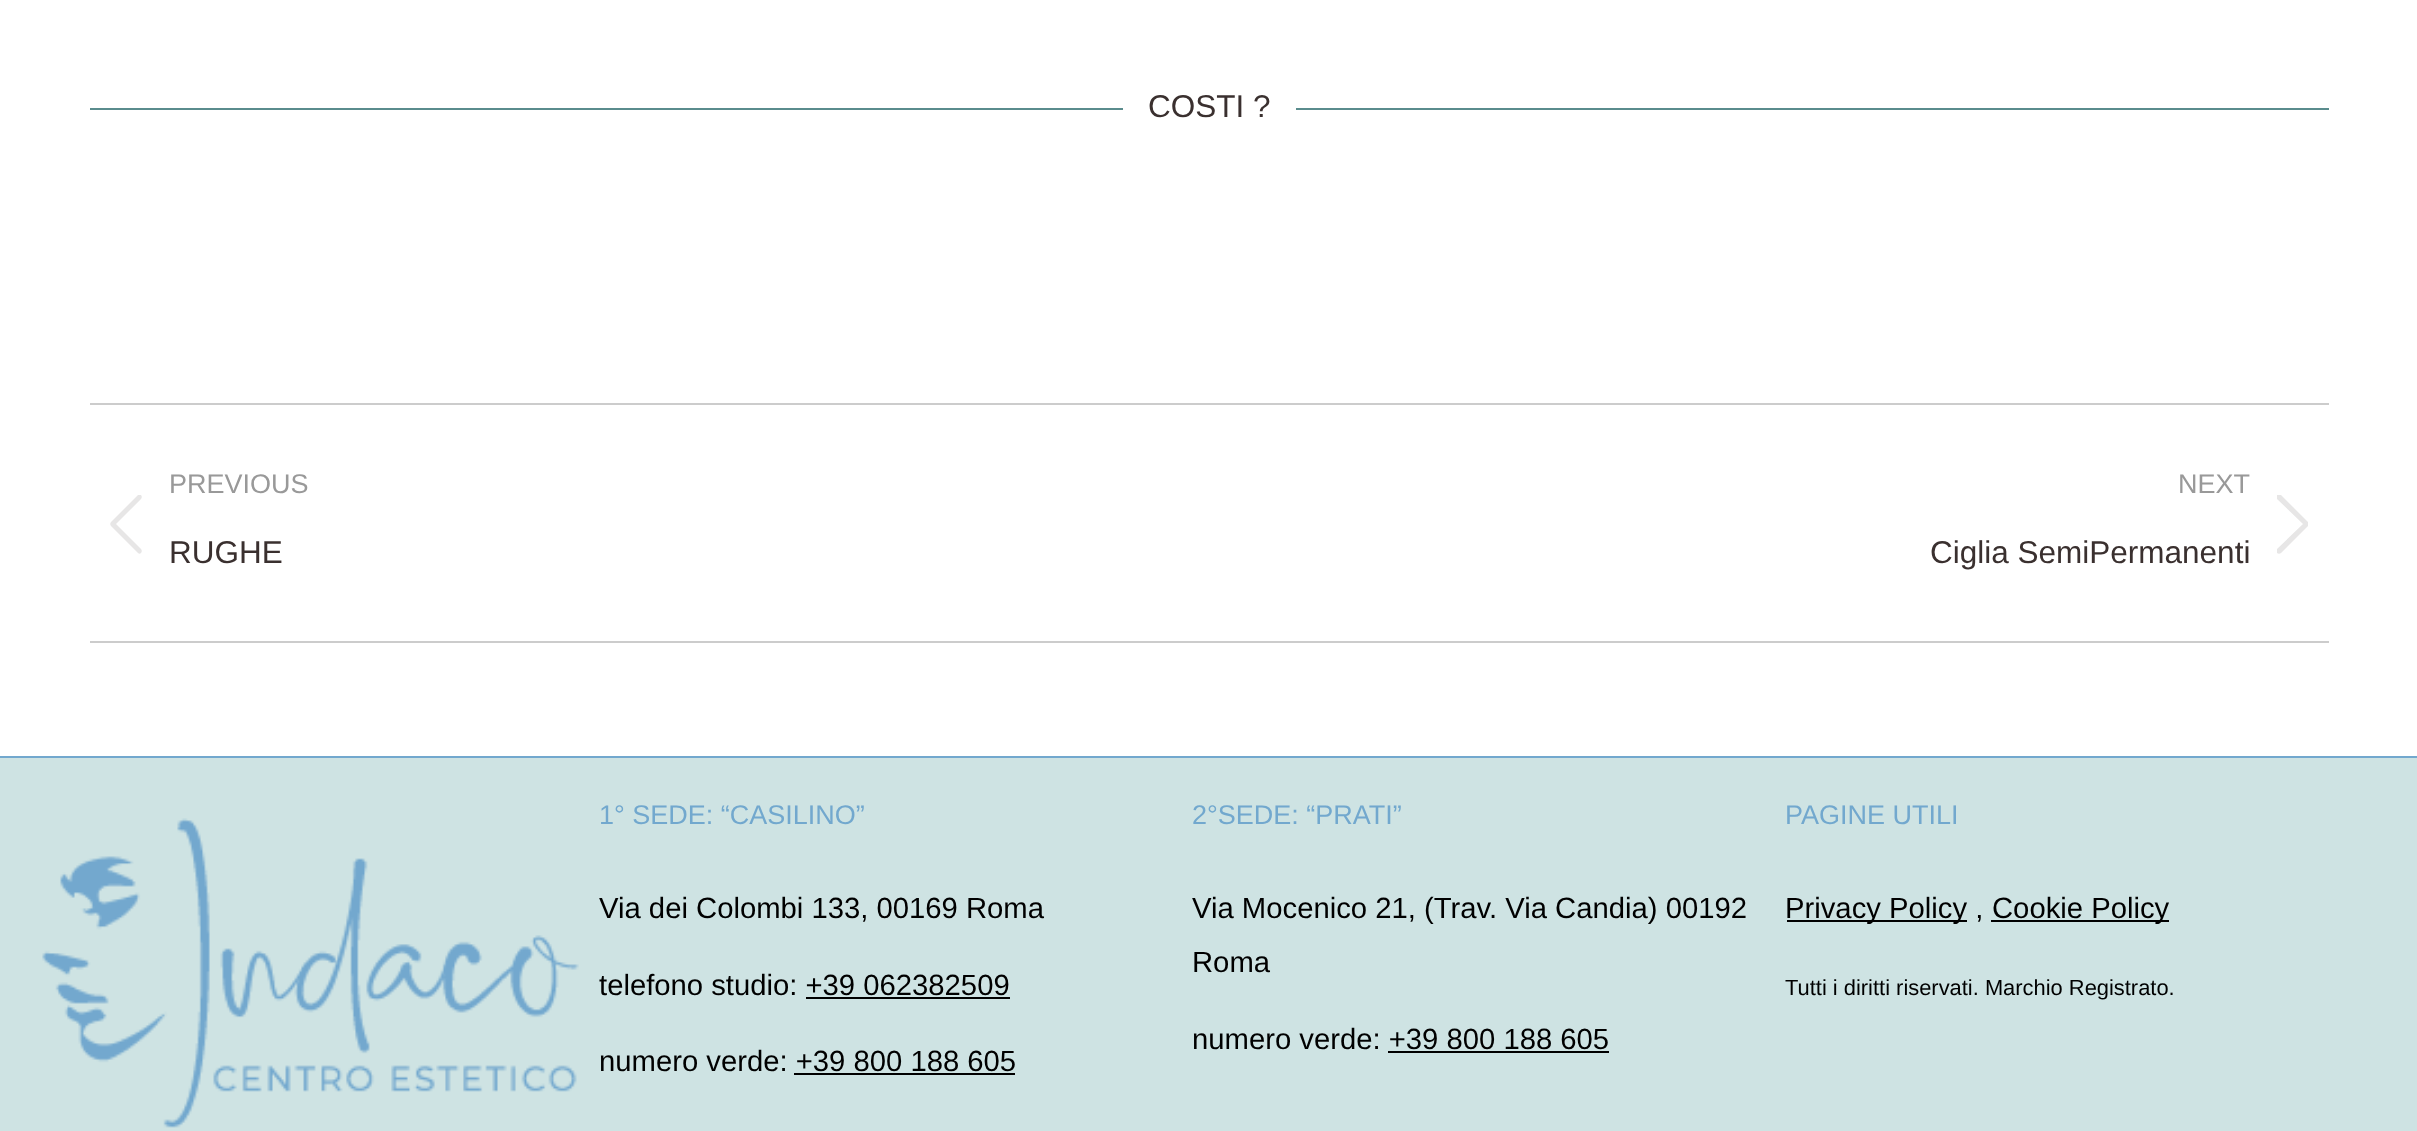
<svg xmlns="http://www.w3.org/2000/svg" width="2417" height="1131">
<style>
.a{font:31.5px Liberation Sans;fill:#3a302f}
.b{font:27px Liberation Sans;fill:#999}
.c{font:27px Liberation Sans;fill:#72a8ce}
.d{font:29.25px Liberation Sans;fill:#000}
.e{font:21.9px Liberation Sans;fill:#000}
</style>
<rect width="100%" height="100%" fill="#fff"/>
<path fill="#5a8c8d" d="M90 108h1033v2H90z"/>
<path fill="#5a8c8d" d="M1296 108h1033v2H1296z"/>
<path fill="#ccc" d="M90 403h2239v2H90z"/>
<path fill="#ccc" d="M90 641h2239v2H90z"/>
<path fill="#e7e6e6" d="M141 495c1 1 1 3 0 4l-25 25l25 25c1 1 1 3 0 4c-1 1-2 1-3 0l-27-27c-1-1-1-3 0-4l27-27c1 0 2 0 3 0z"/>
<path fill="#e7e6e6" d="M2277 495c1 0 3 0 4 0l27 27c0 1 0 3 0 4l-27 27c-1 1-3 1-4 0c0-1 0-3 0-4l26-25l-26-25z"/>
<path fill="#cee3e3" d="M0 758h2417v373H0z"/>
<path fill="#72a8ce" d="M0 756h2417v2H0z"/>
<image href="1.png" x="42" y="818" width="537" height="310"/>
<path fill="#000" d="M806 997h204v2H806z"/>
<path fill="#000" d="M794 1073h221v2H794z"/>
<path fill="#000" d="M1388 1051h221v2H1388z"/>
<path fill="#000" d="M1787 920h180v2H1787z"/>
<path fill="#000" d="M1991 920h178v2H1991z"/>
<text class="a" x="1148" y="117">COSTI ?</text>
<text class="b" x="169" y="493">PREVIOUS</text>
<text class="a" x="169" y="563">RUGHE</text>
<text class="b" x="2178" y="493">NEXT</text>
<text class="a" x="1930" y="563">Ciglia SemiPermanenti</text>
<text class="c" x="599" y="824">1° SEDE: “CASILINO”</text>
<text class="d" x="599" y="918">Via dei Colombi 133, 00169 Roma</text>
<text class="d" x="599" y="995">telefono studio: +39 062382509</text>
<text class="d" x="599" y="1071">numero verde: +39 800 188 605</text>
<text class="c" x="1192" y="824">2°SEDE: “PRATI”</text>
<text class="d" x="1192" y="918">Via Mocenico 21, (Trav. Via Candia) 00192</text>
<text class="d" x="1192" y="972">Roma</text>
<text class="d" x="1192" y="1049">numero verde: +39 800 188 605</text>
<text class="c" x="1785" y="824">PAGINE UTILI</text>
<text class="d" x="1785" y="918">Privacy Policy ,</text>
<text class="d" x="1992" y="918">Cookie Policy</text>
<text class="e" x="1785" y="995">Tutti i diritti riservati. Marchio Registrato.</text>
</svg>
